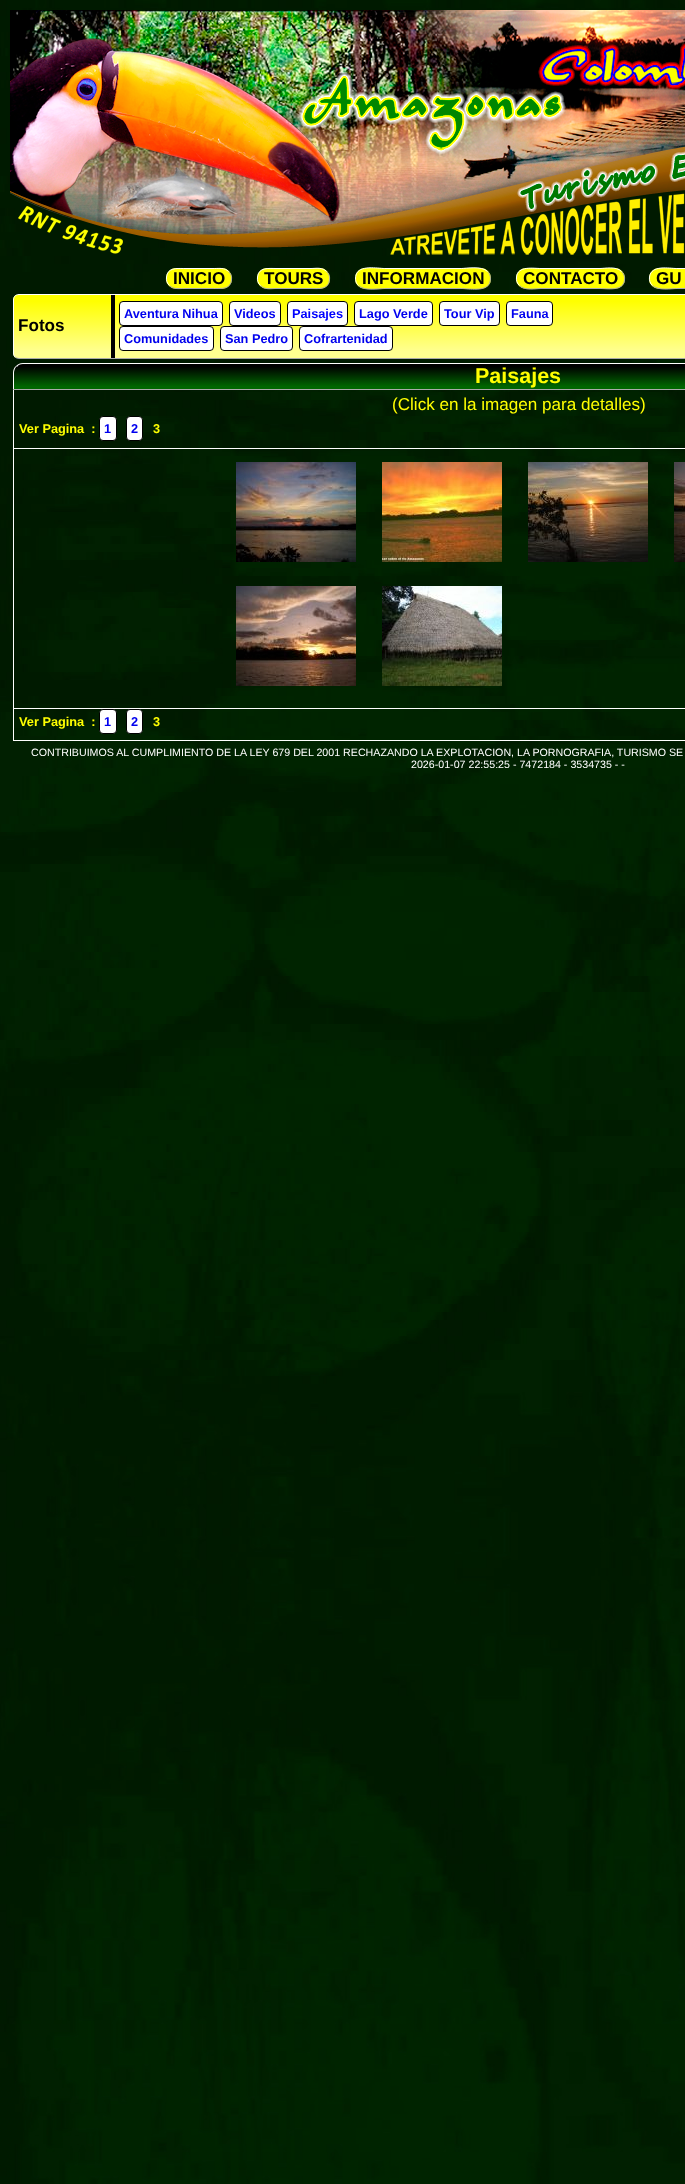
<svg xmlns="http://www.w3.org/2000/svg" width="685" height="2184">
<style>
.a{font:bold 17.1px Liberation Sans;fill:#000}
.b{font:bold 12.75px Liberation Sans;fill:#00e}
.c{font:bold 12.75px Liberation Sans;fill:#00f}
.d{font:bold 21.5px Liberation Sans;fill:#ff0}
.e{font:17.1px Liberation Sans;fill:#ff0}
.f{font:bold 12.75px Liberation Sans;fill:#ff0}
.g{font:10.67px Liberation Sans;fill:#fff}
</style>
<defs>
<clipPath id="clip1"><rect x="13" y="294" width="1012" height="65" rx="6"/></clipPath>
<linearGradient id="g1" gradientUnits="userSpaceOnUse" x1="519" y1="295" x2="519" y2="358"><stop offset="0.1" stop-color="#ff0"/><stop offset="0.9" stop-color="#ffff91"/></linearGradient>
<clipPath id="clip2"><path d="M23 363h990c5.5 0 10 4.5 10 10v17h-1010v-17c0-5.5 4.5-10 10-10z"/></clipPath>
<linearGradient id="g2" gradientUnits="userSpaceOnUse" x1="518" y1="364" x2="518" y2="389"><stop offset="0.1" stop-color="#000"/><stop offset="0.9" stop-color="#060"/></linearGradient>
</defs>
<rect width="100%" height="100%" fill="#fff"/>
<image href="1.png" x="0" y="0" width="685" height="2184"/>
<image href="2.png" x="10" y="10" width="675" height="245"/>
<rect fill="#ff0" x="166" y="268" width="66" height="21" rx="10"/>
<path fill="none" stroke="#aaa" d="M228.5 271.5c2.5 2 3.5 5.5 3 8.5c-1 9.5-10 8.5-17 8.5h-31c-4.5 0-10.5 1-14-3"/>
<path fill="none" stroke="#fff" d="M169.5 285.5c-2.5-2-3.5-5.5-3-8.5c1-9.5 10-8.5 17-8.5h31c4.5 0 10.5-1 14 3"/>
<rect fill="#ff0" x="257" y="268" width="73" height="21" rx="10"/>
<path fill="none" stroke="#aaa" d="M326.5 271.5c2.5 2 3.5 5.5 3 8.5c-1 10-11 8.5-18.5 8.5h-35c-5 0-11.5 1.5-15.5-3"/>
<path fill="none" stroke="#fff" d="M260.5 285.5c-2.5-2-3.5-5.5-3-8.5c1-10 11-8.5 18.5-8.5h35c5 0 11.5-1.5 15.5 3"/>
<rect fill="#ff0" x="355" y="268" width="136" height="21" rx="10"/>
<path fill="none" stroke="#aaa" d="M487.5 271.5c3 2.5 3.5 6.5 2.5 10.5c-3 10.5-22 6.5-28.5 6.5h-77c-4 0-20.5 3-26-3"/>
<path fill="none" stroke="#fff" d="M358.5 285.5c-3-2.5-3.5-6.5-2.5-10.5c3-10.5 22-6.5 28.5-6.5h77c4 0 20.5-3 26 3"/>
<rect fill="#ff0" x="516" y="268" width="109" height="21" rx="10"/>
<path fill="none" stroke="#aaa" d="M621.5 271.5c2.5 2 3.5 5.5 3 8.5c-1 11.5-17 8.5-24.5 8.5h-59c-5 0-16.5 2.5-21.5-3"/>
<path fill="none" stroke="#fff" d="M519.5 285.5c-2.5-2-3.5-5.5-3-8.5c1-11.5 17-8.5 24.5-8.5h59c5 0 16.5-2.5 21.5 3"/>
<rect fill="#ff0" x="649" y="268" width="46" height="21" rx="10"/>
<path fill="none" stroke="#aaa" d="M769.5 271.5c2.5 2 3.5 5.5 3 8.5c-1.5 12.5-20 8.5-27 8.5h-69c-4.5 0-18.5 2.5-24-3"/>
<path fill="none" stroke="#fff" d="M652.5 285.5c-2.5-2-3.5-5.5-3-8.5c1.5-12.5 20-8.5 27-8.5h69c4.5 0 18.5-2.5 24 3"/>
<g clip-path="url(#clip1)">
<path fill="url(#g1)" d="M13 295h672v63H13z"/>
</g>
<path fill="none" stroke="#aaa" d="M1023 296c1 1 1.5 2.5 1.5 4v53c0 1.5-.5 3-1.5 4c-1 1-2.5 1.5-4 1.5h-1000c-1.5 0-3-.5-4-1.5"/>
<path fill="none" stroke="#fff" d="M15 357c-1-1-1.5-2.5-1.5-4v-53c0-1.5 .5-3 1.5-4c1-1 2.5-1.5 4-1.5h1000c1.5 0 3 .5 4 1.5"/>
<path fill="#000" d="M111 295h4v63H111z"/>
<rect fill="#fff" stroke="#000" x="119.5" y="301.5" width="103" height="24" rx="3.5"/>
<rect fill="#fff" stroke="#000" x="229.5" y="301.5" width="51" height="24" rx="3.5"/>
<rect fill="#fff" stroke="#000" x="287.5" y="301.5" width="60" height="24" rx="3.5"/>
<rect fill="#fff" stroke="#000" x="354.5" y="301.5" width="78" height="24" rx="3.5"/>
<rect fill="#fff" stroke="#000" x="439.5" y="301.5" width="60" height="24" rx="3.5"/>
<rect fill="#fff" stroke="#000" x="506.5" y="301.5" width="46" height="24" rx="3.5"/>
<rect fill="#fff" stroke="#000" x="119.5" y="326.5" width="94" height="24" rx="3.5"/>
<rect fill="#fff" stroke="#000" x="220.5" y="326.5" width="72" height="24" rx="3.5"/>
<rect fill="#fff" stroke="#000" x="299.5" y="326.5" width="93" height="24" rx="3.5"/>
<g clip-path="url(#clip2)">
<path fill="url(#g2)" d="M13 364h672v25H13z"/>
</g>
<path fill="#fff" d="M23 363c-3 0-5 1-7 3l1 1c1-2 3-3 6-3h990c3 0 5 1 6 3l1-1c-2-2-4-3-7-3z"/>
<path fill="#aaa" d="M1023 390l-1-1h-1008l-1 1z"/>
<path fill="#fff" d="M13 390l1-1v-16c0-2.5 1-5 2.5-6.5l-.5-.5c-2 1.5-3 4-3 7z"/>
<path fill="#fff" d="M13 448h672v1H13z"/>
<path fill="#fff" d="M13 390h1v59H13z"/>
<rect fill="#fff" stroke="#000" x="99.5" y="416.5" width="17" height="24" rx="3.5"/>
<rect fill="#fff" stroke="#000" x="126.5" y="416.5" width="16" height="24" rx="3.5"/>
<path fill="#fff" d="M13 708h672v1H13z"/>
<path fill="#fff" d="M13 449h1v260H13z"/>
<image href="3.png" x="236" y="462" width="120" height="100"/>
<image href="4.png" x="382" y="462" width="120" height="100"/>
<image href="5.png" x="528" y="462" width="120" height="100"/>
<image href="6.png" x="674" y="462" width="11" height="100"/>
<image href="7.png" x="236" y="586" width="120" height="100"/>
<image href="8.png" x="382" y="586" width="120" height="100"/>
<path fill="#fff" d="M13 740h672v1H13z"/>
<path fill="#fff" d="M13 709h1v32H13z"/>
<rect fill="#fff" stroke="#000" x="99.5" y="709.5" width="17" height="24" rx="3.5"/>
<rect fill="#fff" stroke="#000" x="126.5" y="709.5" width="16" height="24" rx="3.5"/>
<text class="a" x="173" y="284">INICIO</text>
<text class="a" x="264" y="284">TOURS</text>
<text class="a" x="362" y="284">INFORMACION</text>
<text class="a" x="523" y="284">CONTACTO</text>
<text class="a" x="656" y="284">GU</text>
<text class="a" x="18" y="331">Fotos</text>
<text class="b" x="124" y="318">Aventura Nihua</text>
<text class="b" x="234" y="318">Videos</text>
<text class="c" x="292" y="318">Paisajes</text>
<text class="b" x="359" y="318">Lago Verde</text>
<text class="b" x="444" y="318">Tour Vip</text>
<text class="b" x="511" y="318">Fauna</text>
<text class="b" x="124" y="343">Comunidades</text>
<text class="b" x="225" y="343">San Pedro</text>
<text class="b" x="304" y="343">Cofrartenidad</text>
<text class="d" x="475" y="383">Paisajes</text>
<text class="e" x="392" y="410">(Click en la imagen para detalles)</text>
<text class="f" xml:space="preserve" x="19" y="433">Ver Pagina  :</text>
<text class="b" x="104" y="433">1</text>
<text class="b" x="131" y="433">2</text>
<text class="f" x="153" y="433">3</text>
<text class="f" xml:space="preserve" x="19" y="726">Ver Pagina  :</text>
<text class="b" x="104" y="726">1</text>
<text class="b" x="131" y="726">2</text>
<text class="f" x="153" y="726">3</text>
<text class="g" x="31" y="756">CONTRIBUIMOS AL CUMPLIMIENTO DE LA LEY 679 DEL 2001 RECHAZANDO LA EXPLOTACION, LA PORNOGRAFIA, TURISMO SE</text>
<text class="g" x="411" y="768">2026-01-07 22:55:25 - 7472184 - 3534735 - -</text>
</svg>
